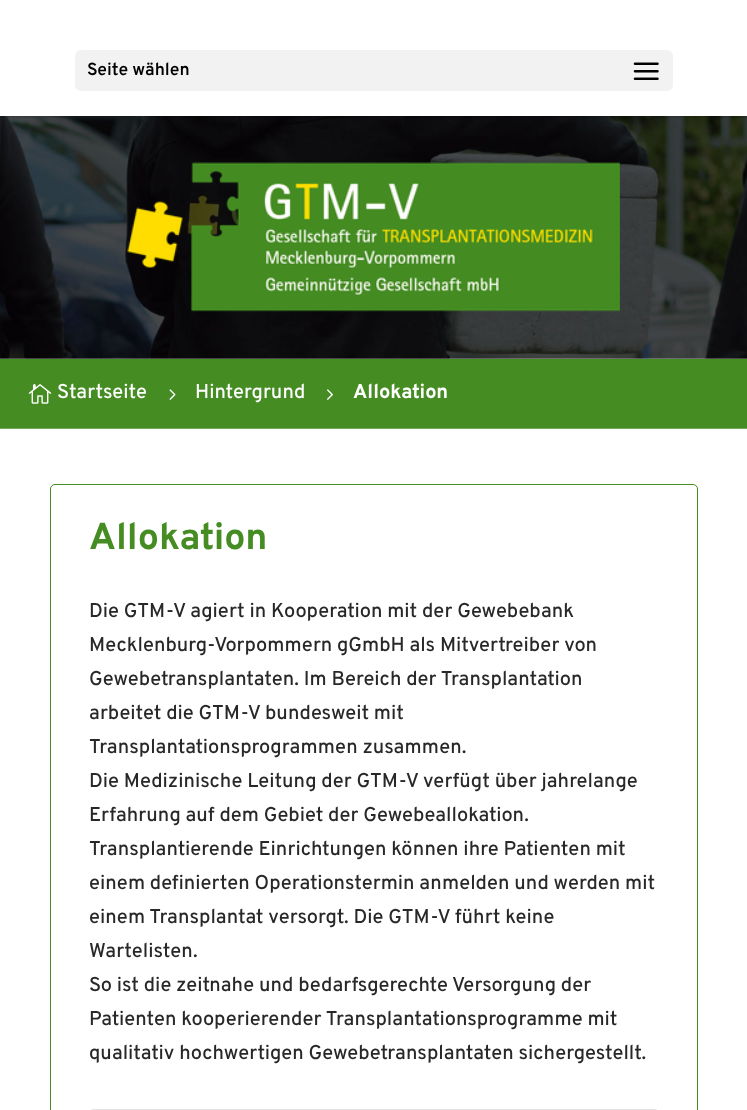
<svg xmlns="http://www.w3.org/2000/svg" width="747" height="1110">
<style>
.a{font:600 17.5px Overpass;fill:#000}
.b{font:500 20px Overpass;fill:#fff}
.c{font:bold 20px Overpass;fill:#fff}
.d{font:bold 37.5px Overpass;fill:#458c23}
.e{font:500 20px Overpass;fill:#282828}
</style>
<rect width="100%" height="100%" fill="#fff"/>
<image href="2.png" x="0" y="116" width="747" height="243"/>
<path fill="#0000001a" d="M0 116v2h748v-117v115z"/>
<rect fill="#f2f2f2" x="75" y="50" width="598" height="41" rx="6"/>
<image href="1.png" x="633" y="62" width="26" height="18"/>
<image href="3.png" x="127" y="162" width="493" height="150"/>
<path fill="#458c23" d="M0 359h747v69H0z"/>
<image href="4.png" x="28" y="384" width="24" height="20"/>
<image href="5.png" x="169" y="389" width="7" height="11"/>
<image href="6.png" x="327" y="389" width="6" height="11"/>
<path fill="#74a95a" d="M0 428h747v1H0z"/>
<rect fill="none" stroke="#458c23" x="50.5" y="484.5" width="647" height="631" rx="4.5"/>
<rect fill="#e2e2e2" x="89" y="1109" width="570" height="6" rx="5"/>
<text class="a" x="87" y="75">Seite wählen</text>
<text class="b" x="57" y="398">Startseite</text>
<text class="b" x="195" y="398">Hintergrund</text>
<text class="c" x="353" y="398">Allokation</text>
<text class="d" x="89" y="549">Allokation</text>
<text class="e" x="89" y="617">Die GTM-V agiert in Kooperation mit der Gewebebank</text>
<text class="e" x="89" y="651">Mecklenburg-Vorpommern gGmbH als Mitvertreiber von</text>
<text class="e" x="89" y="685">Gewebetransplantaten. Im Bereich der Transplantation</text>
<text class="e" x="89" y="719">arbeitet die GTM-V bundesweit mit</text>
<text class="e" x="89" y="753">Transplantationsprogrammen zusammen.</text>
<text class="e" x="89" y="787">Die Medizinische Leitung der GTM-V verfügt über jahrelange</text>
<text class="e" x="89" y="821">Erfahrung auf dem Gebiet der Gewebeallokation.</text>
<text class="e" x="89" y="855">Transplantierende Einrichtungen können ihre Patienten mit</text>
<text class="e" x="89" y="889">einem definierten Operationstermin anmelden und werden mit</text>
<text class="e" x="89" y="923">einem Transplantat versorgt. Die GTM-V führt keine</text>
<text class="e" x="89" y="957">Wartelisten.</text>
<text class="e" x="89" y="991">So ist die zeitnahe und bedarfsgerechte Versorgung der</text>
<text class="e" x="89" y="1025">Patienten kooperierender Transplantationsprogramme mit</text>
<text class="e" x="89" y="1059">qualitativ hochwertigen Gewebetransplantaten sichergestellt.</text>
</svg>
